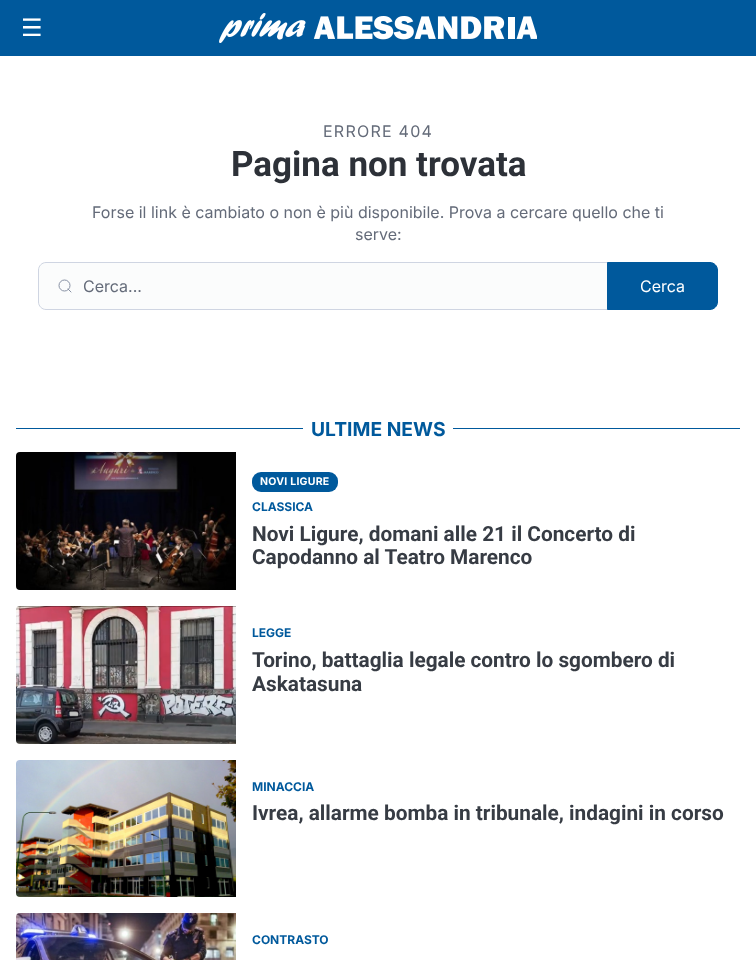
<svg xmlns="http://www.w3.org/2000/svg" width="756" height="960">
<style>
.a{font:24px DejaVu Sans;fill:#fff}
.b{font:16px Inter;letter-spacing:1.25px;fill:#646b79}
.c{font:bold 35px Roboto;fill:#2d3138}
.d{font:16px Inter;fill:#646b79}
.e{font:16px Inter;fill:#fff}
.f{font:bold 19.25px Inter;fill:#00599c}
.g{font:bold 10.5px Inter;letter-spacing:0.25px;fill:#fff}
.h{font:bold 12px Inter;fill:#00599c}
.i{font:bold 20.8px Roboto;fill:#373c44}
</style>
<rect width="100%" height="100%" fill="#fff"/>
<path fill="#00599c" d="M0 0h756v56H0z"/>
<image href="1.png" x="219" y="13" width="318" height="30"/>
<path fill="#fbfcfc" d="M46 262h562v48h-562c-4.5 0-8-3.5-8-8v-32c0-4.5 3.5-8 8-8z"/>
<circle fill="none" stroke="#8891a4" cx="64.5" cy="285.5" r="5.5"/>
<path fill="none" stroke="#8891a4" stroke-linecap="round" stroke-linejoin="round" d="M71 292l-3-3"/>
<path fill="none" stroke="#cfd5e2" d="M46 262.5h561.5v47h-561.5c-4 0-7.5-3.5-7.5-7.5v-32c0-4 3.5-7.5 7.5-7.5z"/>
<path fill="#00599c" stroke="#00599c" d="M607.5 262.5h102.5c4 0 7.5 3.5 7.5 7.5v32c0 4-3.5 7.5-7.5 7.5h-102.5z"/>
<path fill="#00599c" d="M16 428h724v1H16z"/>
<path fill="#fff" d="M303 428h150v1H303z"/>
<image href="2.png" x="16" y="452" width="220" height="138"/>
<rect fill="#00599c" x="252" y="472" width="86" height="20" rx="9"/>
<image href="3.png" x="16" y="606" width="220" height="138"/>
<image href="4.png" x="16" y="760" width="220" height="137"/>
<image href="5.png" x="16" y="913" width="220" height="47"/>
<text class="a" x="21" y="36">☰</text>
<text class="b" x="323" y="137">ERRORE 404</text>
<text class="c" x="231" y="176">Pagina non trovata</text>
<text class="d" x="92" y="218">Forse il link è cambiato o non è più disponibile. Prova a cercare quello che ti</text>
<text class="d" x="355" y="240">serve:</text>
<text class="d" x="83" y="292">Cerca...</text>
<text class="e" x="640" y="292">Cerca</text>
<text class="f" x="311" y="436">ULTIME NEWS</text>
<text class="g" x="260" y="485">NOVI LIGURE</text>
<text class="h" x="252" y="511">CLASSICA</text>
<text class="i" x="252" y="541">Novi Ligure, domani alle 21 il Concerto di</text>
<text class="i" x="252" y="564">Capodanno al Teatro Marenco</text>
<text class="h" x="252" y="637">LEGGE</text>
<text class="i" x="252" y="667">Torino, battaglia legale contro lo sgombero di</text>
<text class="i" x="252" y="691">Askatasuna</text>
<text class="h" x="252" y="791">MINACCIA</text>
<text class="i" x="252" y="820">Ivrea, allarme bomba in tribunale, indagini in corso</text>
<text class="h" x="252" y="944">CONTRASTO</text>
</svg>
